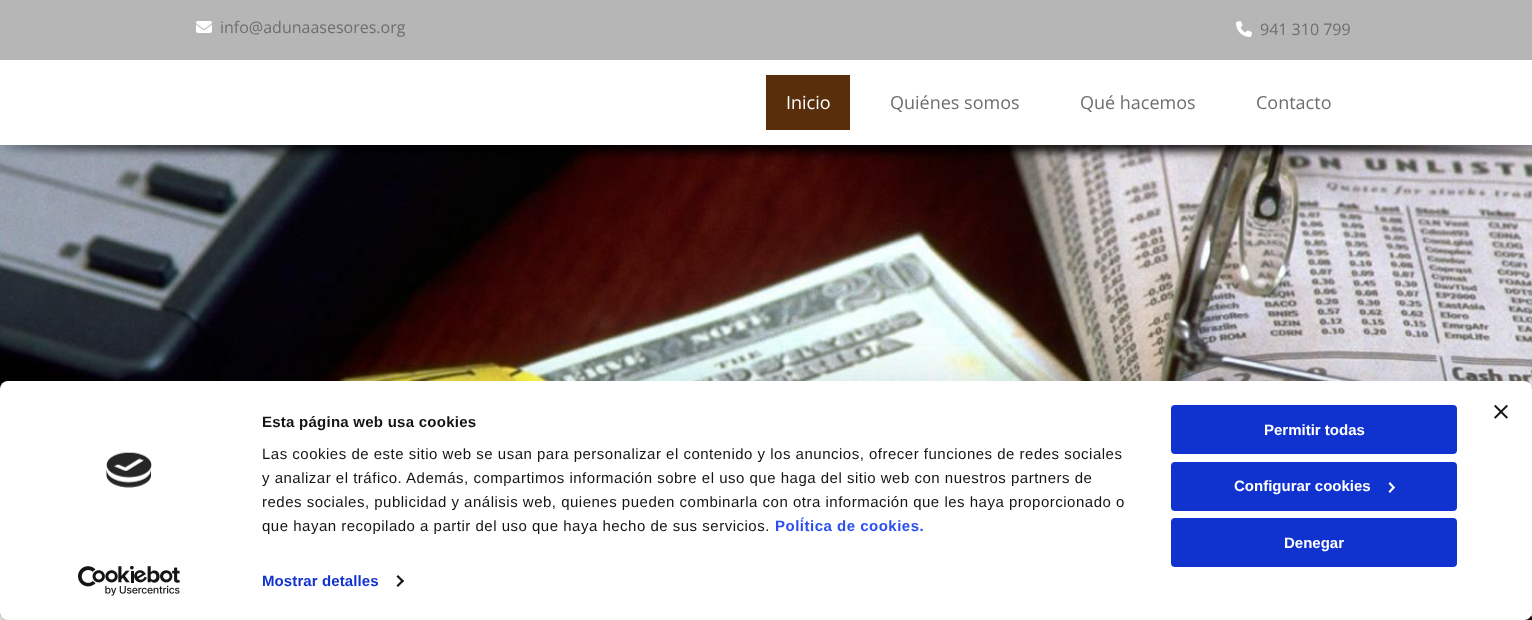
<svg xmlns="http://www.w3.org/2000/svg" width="1532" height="620">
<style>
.a{font:16px Open Sans;fill:#6d6e71}
.b{font:18px Open Sans;fill:#fff}
.c{font:18px Open Sans;fill:#6d6e71}
.d{font:bold 15px Liberation Sans;letter-spacing:0.25px;fill:#141414}
.e{font:15px Liberation Sans;letter-spacing:0.5px;fill:#141414}
.f{font:bold 15px Liberation Sans;letter-spacing:0.5px;fill:#2a4eef}
.g{font:bold 15px Liberation Sans;letter-spacing:0.1px;fill:#1032cf}
.h{font:bold 15px Liberation Sans;fill:#fff}
</style>
<rect width="100%" height="100%" fill="#b6b6b6"/>
<image href="1.png" x="196" y="21" width="16" height="12"/>
<image href="2.png" x="1236" y="21" width="16" height="16"/>
<path fill="#fff" d="M0 60h1532v85H0z"/>
<path fill="#592e0b" d="M766 75h84v55H766z"/>
<image href="3.png" x="0" y="145" width="1532" height="475"/>
<rect fill="#0000004d" filter="blur(35px)" y="411" width="1532" height="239" rx="8"/>
<rect fill="#fff" y="381" width="1532" height="239" rx="8"/>
<image href="4.png" x="1494" y="405" width="14" height="14"/>
<image href="5.png" x="106" y="452" width="46" height="36"/>
<image href="6.png" x="78" y="566" width="102" height="30"/>
<path fill="#141414" d="M398 575l6 6l-1.5 1.5l-6-6z"/>
<path fill="#141414" d="M402.5 579.5l1.5 1.5l-6 6l-1.5-1.5z"/>
<rect fill="#1032cf" stroke="#1032cf" stroke-width="2" x="1172" y="406" width="284" height="47" rx="3"/>
<rect fill="#1032cf" stroke="#1032cf" stroke-width="2" x="1172" y="463" width="284" height="47" rx="3"/>
<path fill="#fff" d="M1390 482l5 5.5l-1.5 1.5l-5-5.5z"/>
<path fill="#fff" d="M1393.5 486l1.5 1.5l-5 5.5l-1.5-1.5z"/>
<rect fill="#1032cf" stroke="#1032cf" stroke-width="2" x="1172" y="519" width="284" height="47" rx="3"/>
<text class="a" x="220" y="33">info@adunaasesores.org</text>
<text class="a" x="1260" y="35">941 310 799</text>
<text class="b" x="786" y="109">Inicio</text>
<text class="c" x="890" y="109">Quiénes somos</text>
<text class="c" x="1080" y="109">Qué hacemos</text>
<text class="c" x="1256" y="109">Contacto</text>
<text class="d" x="262" y="427">Esta página web usa cookies</text>
<text class="e" x="262" y="459">Las cookies de este sitio web se usan para personalizar el contenido y los anuncios, ofrecer funciones de redes sociales</text>
<text class="e" x="262" y="483">y analizar el tráfico. Además, compartimos información sobre el uso que haga del sitio web con nuestros partners de</text>
<text class="e" x="262" y="507">redes sociales, publicidad y análisis web, quienes pueden combinarla con otra información que les haya proporcionado o</text>
<text class="e" x="262" y="531">que hayan recopilado a partir del uso que haya hecho de sus servicios.</text>
<text class="f" x="775" y="531">Política de cookies.</text>
<text class="g" x="262" y="586">Mostrar detalles</text>
<text class="h" x="1264" y="435">Permitir todas</text>
<text class="h" x="1234" y="491">Configurar cookies</text>
<text class="h" x="1284" y="548">Denegar</text>
</svg>
